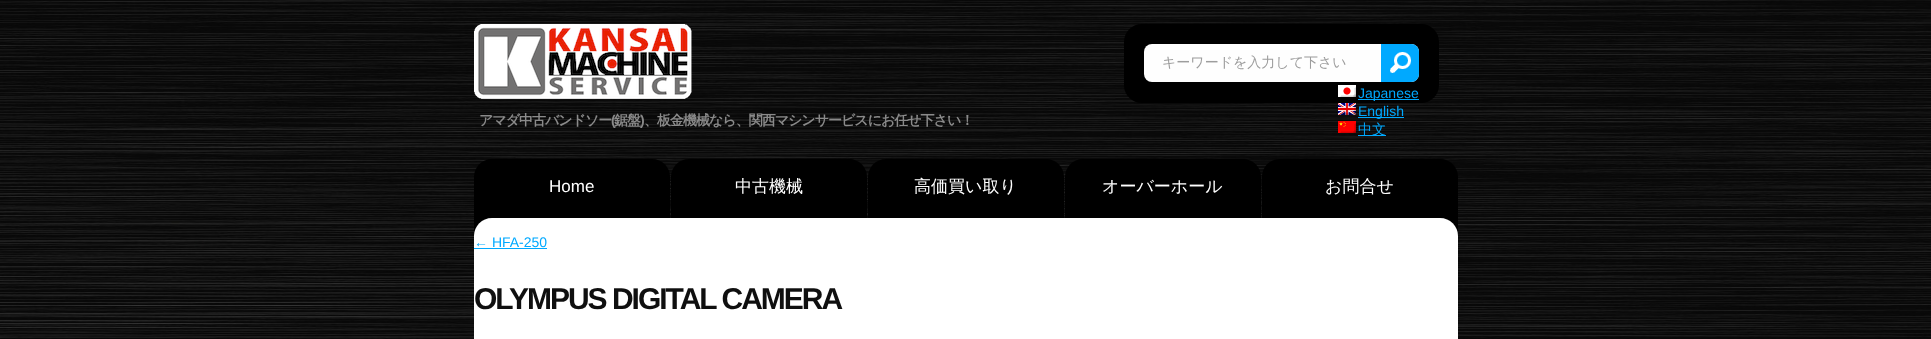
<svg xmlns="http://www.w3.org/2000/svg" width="1931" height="339">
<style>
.a{font:500 14px WenQuanYi Zen Hei;fill:#9d9d9d}
.b{font:bold 14px WenQuanYi Zen Hei;letter-spacing:-1px;fill:#8a8a8a}
.c{font:bold 14px Liberation Sans;letter-spacing:-1px;fill:#8a8a8a}
.d{font:14px Liberation Sans;fill:#00a9ff}
.e{font:500 14px WenQuanYi Zen Hei;fill:#00a9ff}
.f{font:17px Liberation Sans;fill:#fff}
.g{font:500 17px WenQuanYi Zen Hei;fill:#fff}
.h{font:bold 30px Liberation Sans;letter-spacing:-2px;fill:#0f0f0f}
</style>
<rect width="100%" height="100%" fill="#fff"/>
<image href="1.png" x="0" y="0" width="1931" height="339"/>
<rect fill="#000" x="1124" y="24" width="315" height="79" rx="18"/>
<rect fill="#fefefe" x="1144" y="44" width="275" height="38" rx="8"/>
<path fill="#00a9ff" d="M1381 44h30c4.5 0 8 3.5 8 8v22c0 4.5-3.5 8-8 8h-30z"/>
<image href="2.png" x="1390" y="52" width="21" height="21"/>
<image href="3.png" x="474" y="24" width="218" height="75"/>
<image href="4.png" x="1338" y="85" width="18" height="12"/>
<path fill="#00a9ff" d="M1358 99h61v1H1358z"/>
<image href="5.png" x="1338" y="103" width="18" height="12"/>
<path fill="#00a9ff" d="M1358 117h46v1H1358z"/>
<image href="6.png" x="1338" y="121" width="18" height="12"/>
<path fill="#00a9ff" d="M1358 135h28v1H1358z"/>
<path fill="#000" d="M492 159h160c10 0 18 8 18 18v57h-196v-57c0-10 8-18 18-18z"/>
<path fill="#000" d="M689 159h160c10 0 18 8 18 18v57h-196v-57c0-10 8-18 18-18z"/>
<path fill="#000" d="M886 159h160c10 0 18 8 18 18v57h-196v-57c0-10 8-18 18-18z"/>
<path fill="#000" d="M1083 159h160c10 0 18 8 18 18v57h-196v-57c0-10 8-18 18-18z"/>
<path fill="#000" d="M1280 159h160c10 0 18 8 18 18v57h-196v-57c0-10 8-18 18-18z"/>
<path fill="#fff" d="M492 218h948c10 0 18 8 18 18v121h-984v-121c0-10 8-18 18-18z"/>
<path fill="#00a9ff" d="M474 248h73v1H474z"/>
<text class="a" x="1162" y="67">キーワードを入力して下さい</text>
<text class="b" x="479" y="125">アマダ中古バンドソー</text>
<text class="c" x="611" y="125">(</text>
<text class="b" x="614" y="125">鋸盤</text>
<text class="c" x="640" y="125">)</text>
<text class="b" x="644" y="125">、板金機械なら、関西マシンサービスにお任せ下さい！</text>
<text class="d" x="1358" y="98">Japanese</text>
<text class="d" x="1358" y="116">English</text>
<text class="e" x="1358" y="134">中文</text>
<text class="f" x="549" y="192">Home</text>
<text class="g" x="735" y="192">中古機械</text>
<text class="g" x="914" y="192">高価買い取り</text>
<text class="g" x="1102" y="192">オーバーホール</text>
<text class="g" x="1325" y="192">お問合せ</text>
<text class="d" x="474" y="247">← HFA-250</text>
<text class="h" x="474" y="309">OLYMPUS DIGITAL CAMERA</text>
</svg>
